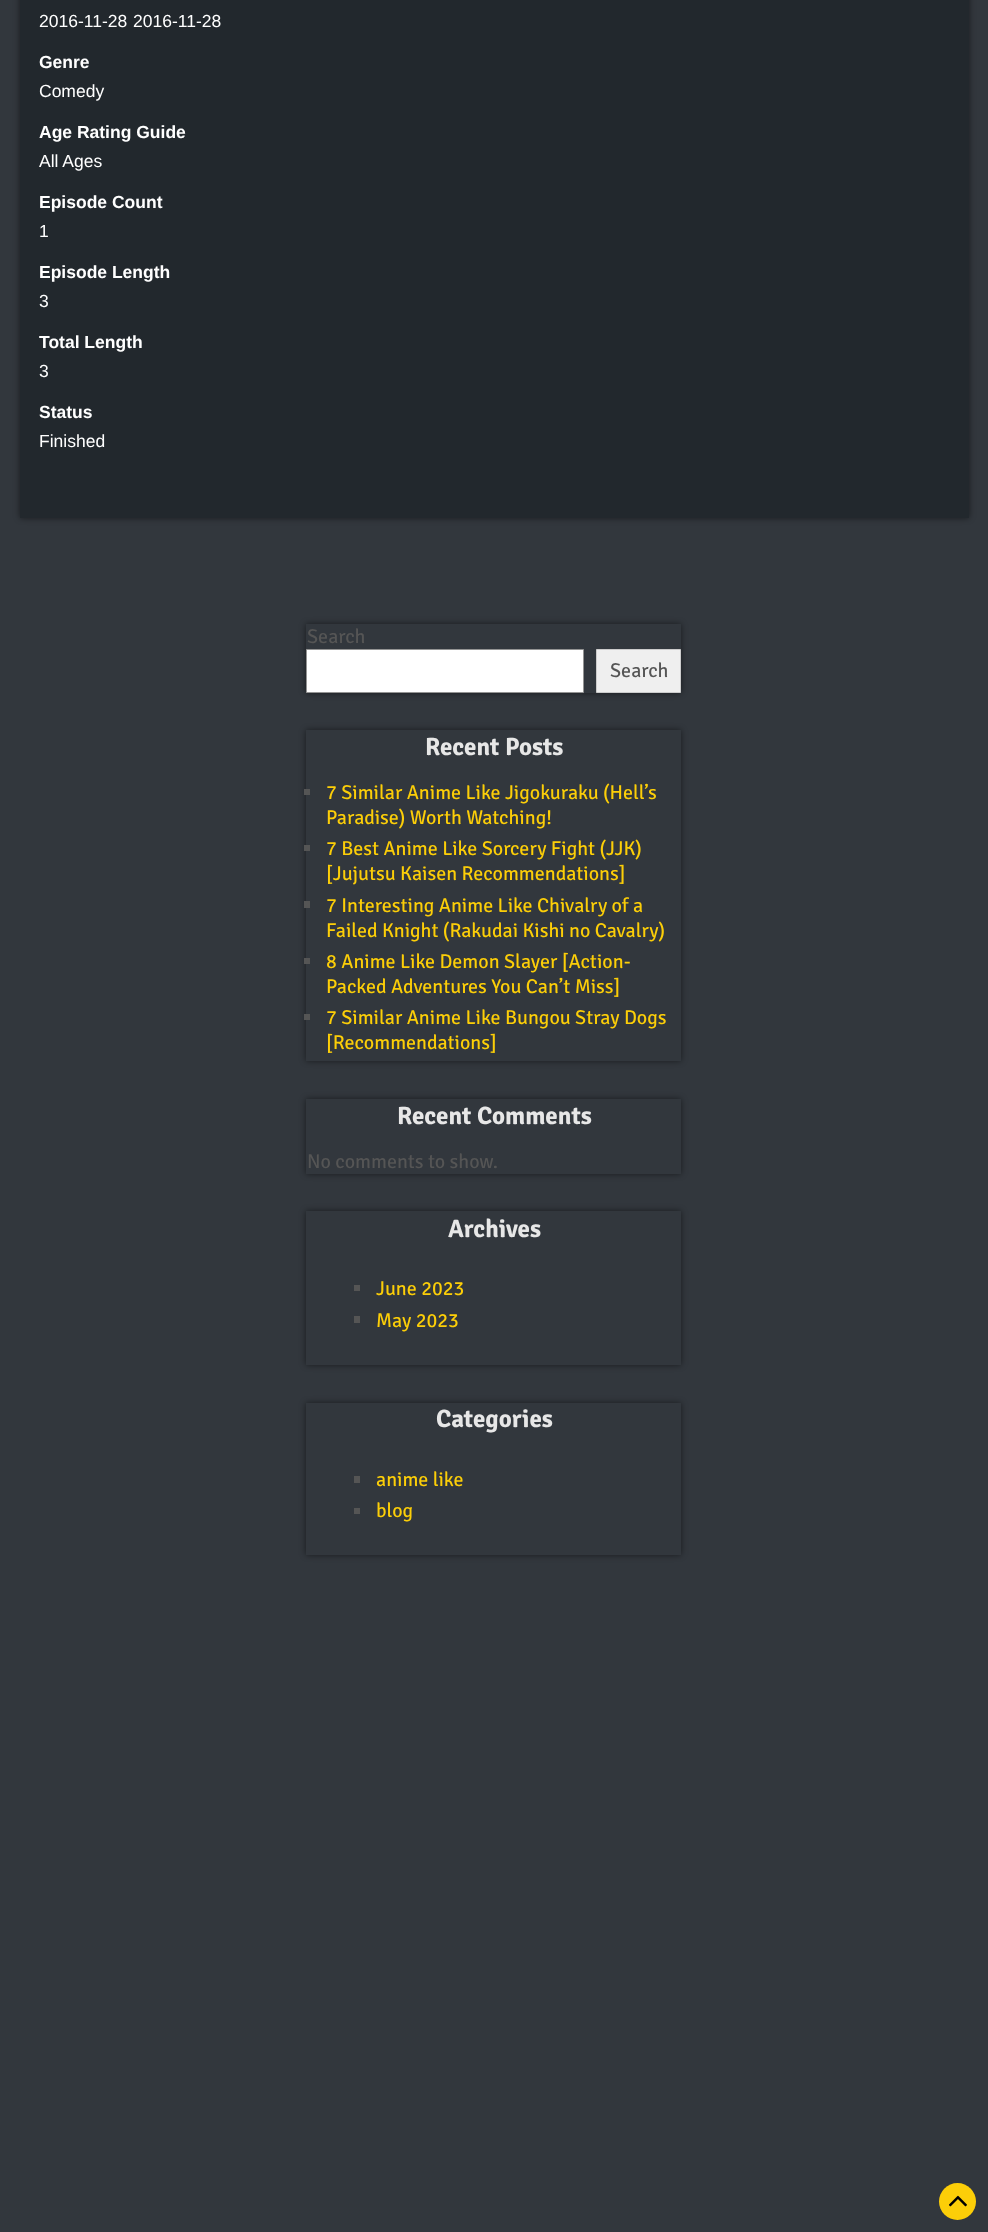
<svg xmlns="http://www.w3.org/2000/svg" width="988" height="2232">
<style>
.a{font:17.5px Liberation Sans;fill:#fff}
.b{font:bold 17.5px Liberation Sans;fill:#fff}
.c{font:20px Signika Negative;fill:#555}
.d{font:bold 25px Signika Negative;fill:#e7e7e7}
.e{font:20px Signika Negative;fill:#fcce08}
</style>
<defs>
<clipPath id="clip1"><path d="M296 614h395v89h-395zm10 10h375v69h-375z" clip-rule="evenodd"/></clipPath>
<clipPath id="clip2"><path d="M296 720h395v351h-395zm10 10h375v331h-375z" clip-rule="evenodd"/></clipPath>
<clipPath id="clip3"><path d="M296 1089h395v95h-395zm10 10h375v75h-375z" clip-rule="evenodd"/></clipPath>
<clipPath id="clip4"><path d="M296 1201h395v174h-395zm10 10h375v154h-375z" clip-rule="evenodd"/></clipPath>
<clipPath id="clip5"><path d="M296 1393h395v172h-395zm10 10h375v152h-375z" clip-rule="evenodd"/></clipPath>
</defs>
<rect width="100%" height="100%" fill="#32373d"/>
<path fill="#00000080" filter="blur(3px)" d="M20 -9h949v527H20z"/>
<path fill="#22282d" d="M20 0h949v518H20z"/>
<g clip-path="url(#clip1)">
<path fill="#00000080" filter="blur(3px)" d="M306 624h375v69H306z"/>
</g>
<path fill="#fff" stroke="#949494" d="M306.5 649.5h277v43H306.5z"/>
<path fill="#efefef" stroke="#ccc" d="M596.5 649.5h84v43H596.5z"/>
<g clip-path="url(#clip2)">
<path fill="#00000080" filter="blur(3px)" d="M306 730h375v331H306z"/>
</g>
<path fill="#555" d="M304 789h6v6H304z"/>
<path fill="#555" d="M304 845h6v6H304z"/>
<path fill="#555" d="M304 901h6v7H304z"/>
<path fill="#555" d="M304 958h6v6H304z"/>
<path fill="#555" d="M304 1014h6v6H304z"/>
<g clip-path="url(#clip3)">
<path fill="#00000080" filter="blur(3px)" d="M306 1099h375v75H306z"/>
</g>
<g clip-path="url(#clip4)">
<path fill="#00000080" filter="blur(3px)" d="M306 1211h375v154H306z"/>
</g>
<path fill="#555" d="M354 1285h6v6H354z"/>
<path fill="#555" d="M354 1316h6v7H354z"/>
<g clip-path="url(#clip5)">
<path fill="#00000080" filter="blur(3px)" d="M306 1403h375v152H306z"/>
</g>
<path fill="#555" d="M354 1476h6v7H354z"/>
<path fill="#555" d="M354 1508h6v6H354z"/>
<circle fill="#fcce08" cx="957.5" cy="2201.5" r="18.5"/>
<image href="1.png" x="949" y="2195" width="18" height="12"/>
<text class="a" x="39" y="27">2016-11-28</text>
<text class="a" x="133" y="27">2016-11-28</text>
<text class="b" x="39" y="68">Genre</text>
<text class="a" x="39" y="97">Comedy</text>
<text class="b" x="39" y="138">Age Rating Guide</text>
<text class="a" x="39" y="167">All Ages</text>
<text class="b" x="39" y="208">Episode Count</text>
<text class="a" x="39" y="237">1</text>
<text class="b" x="39" y="278">Episode Length</text>
<text class="a" x="39" y="307">3</text>
<text class="b" x="39" y="348">Total Length</text>
<text class="a" x="39" y="377">3</text>
<text class="b" x="39" y="418">Status</text>
<text class="a" x="39" y="447">Finished</text>
<text class="c" x="307" y="643">Search</text>
<text class="c" x="610" y="677">Search</text>
<text class="d" x="425" y="755">Recent Posts</text>
<text class="e" x="326" y="799">7 Similar Anime Like Jigokuraku (Hell’s</text>
<text class="e" x="326" y="824">Paradise) Worth Watching!</text>
<text class="e" x="326" y="855">7 Best Anime Like Sorcery Fight (JJK)</text>
<text class="e" x="326" y="880">[Jujutsu Kaisen Recommendations]</text>
<text class="e" x="326" y="912">7 Interesting Anime Like Chivalry of a</text>
<text class="e" x="326" y="937">Failed Knight (Rakudai Kishi no Cavalry)</text>
<text class="e" x="326" y="968">8 Anime Like Demon Slayer [Action-</text>
<text class="e" x="326" y="993">Packed Adventures You Can’t Miss]</text>
<text class="e" x="326" y="1024">7 Similar Anime Like Bungou Stray Dogs</text>
<text class="e" x="326" y="1049">[Recommendations]</text>
<text class="d" x="397" y="1124">Recent Comments</text>
<text class="c" x="307" y="1168">No comments to show.</text>
<text class="d" x="448" y="1237">Archives</text>
<text class="e" x="376" y="1295">June 2023</text>
<text class="e" x="376" y="1327">May 2023</text>
<text class="d" x="436" y="1427">Categories</text>
<text class="e" x="376" y="1486">anime like</text>
<text class="e" x="376" y="1517">blog</text>
</svg>
